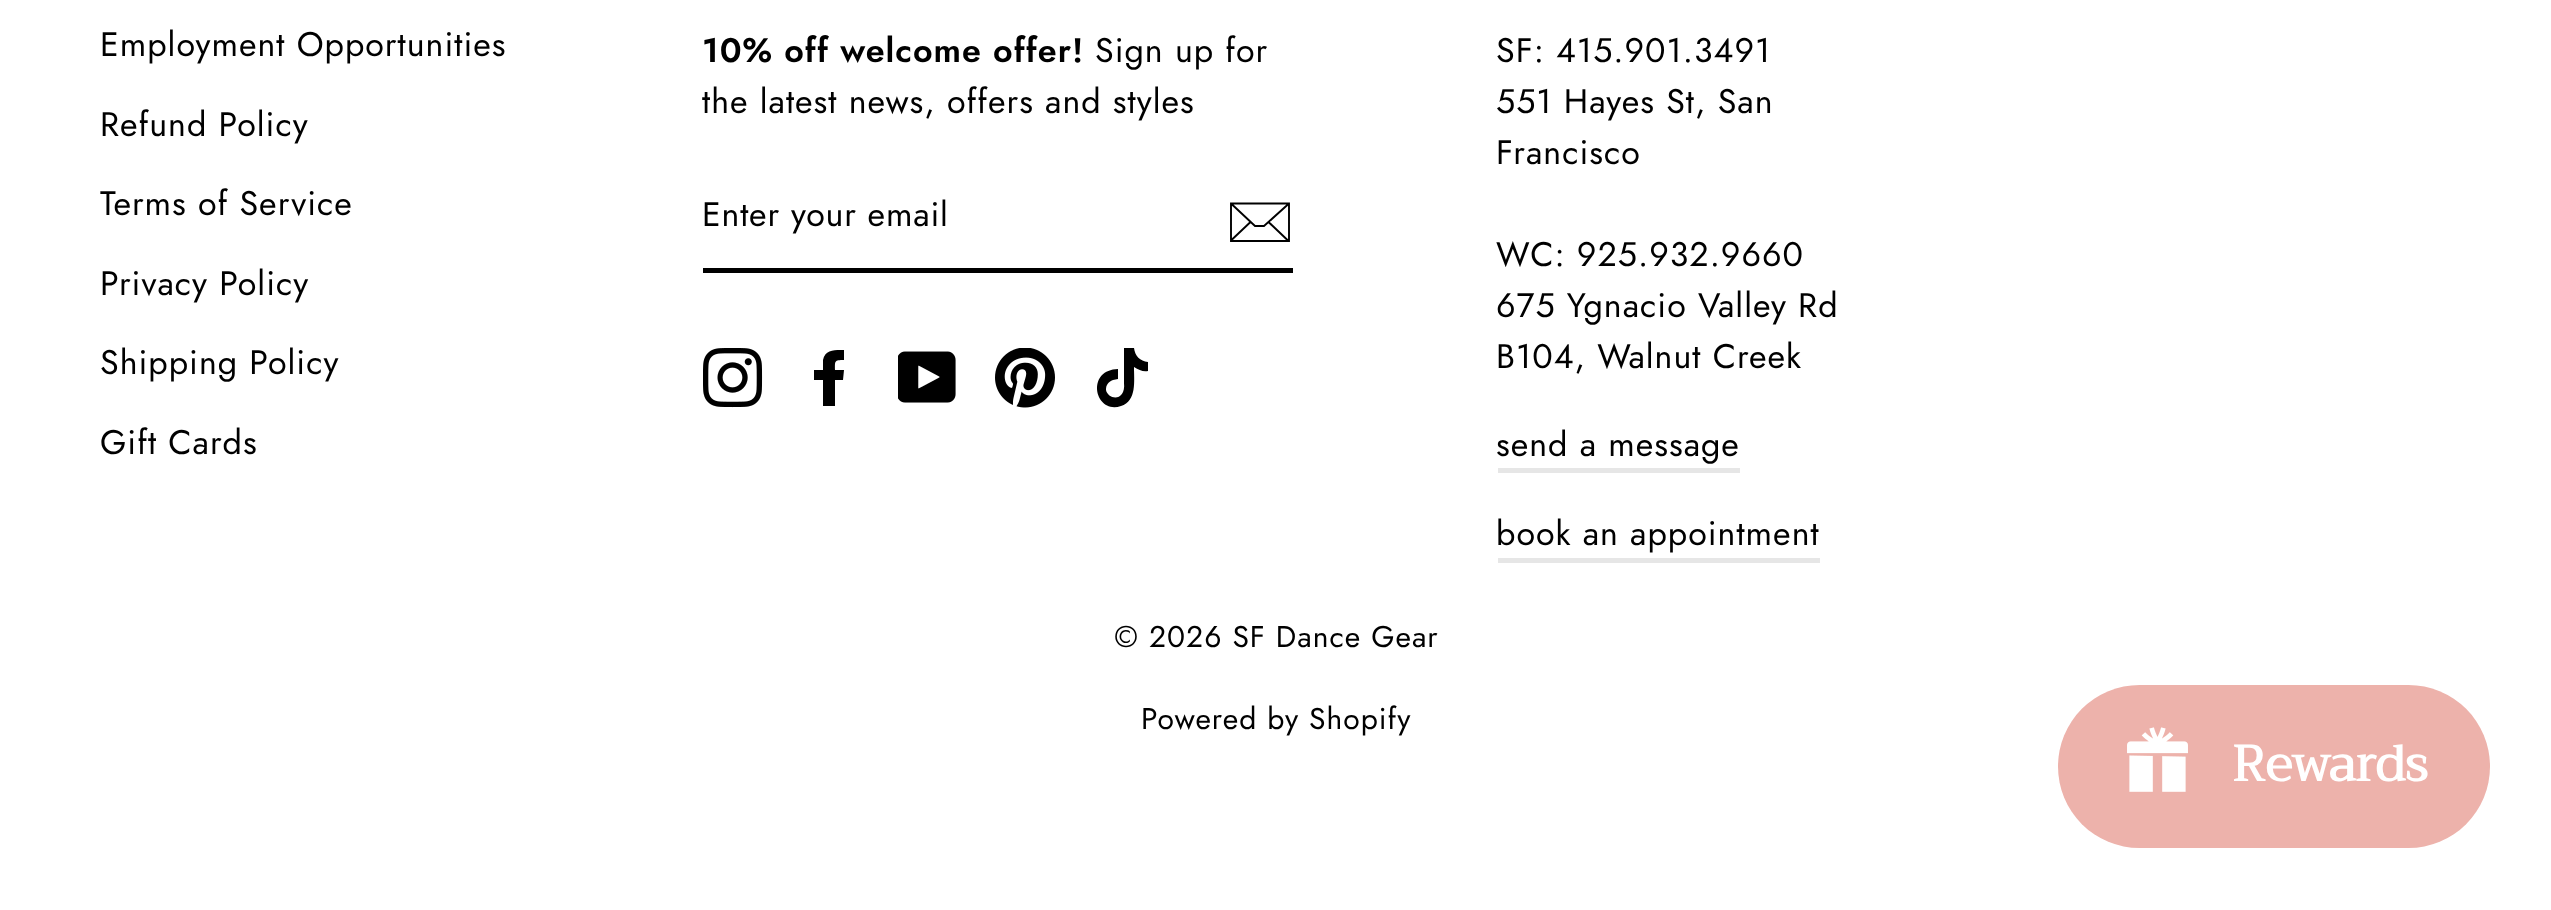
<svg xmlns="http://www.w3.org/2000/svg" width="2551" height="910">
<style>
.a{font:34px Jost;letter-spacing:1px;fill:#000}
.b{font:600 34px Jost;letter-spacing:1px;fill:#000}
.c{font:34px Jost;letter-spacing:0.8px;fill:#000}
.d{font:30px Jost;letter-spacing:1px;fill:#000}
.e{font:bold 50px Trirong;fill:#fff}
</style>
<rect width="100%" height="100%" fill="#fff"/>
<path fill="#000" d="M703 268h590v5H703z"/>
<path fill="none" stroke="#000" stroke-width="1.9" d="M1289 241h-58v-37.5h58zm-58-37.5l24 22.5h9l25-22.5m-38.5 18.5l-19 18m57 1l-20-19"/>
<image href="1.png" x="703" y="348" width="60" height="60"/>
<path fill="#000" d="M835 406v-26h8l1-10h-9c0-9-1-10 9-10v-10c-8 0-19-1-21 10v10h-9v10h9v26z"/>
<image href="2.png" x="898" y="351" width="58" height="52"/>
<image href="3.png" x="995" y="348" width="60" height="60"/>
<path fill="#000" d="M1134 348c1 8 6 13 14 14v9c-5 1-9-1-14-4c0 14 3 34-13 39c-26 9-36-36-3-37v10l-5 1c-5 2-7 5-7 10c2 10 20 12 18-7v-35z"/>
<path fill="#e6e6e6" d="M1498 468h242v5H1498z"/>
<path fill="#e6e6e6" d="M1498 558h322v5H1498z"/>
<rect fill="#edb2ab" x="2058" y="685" width="432" height="163" rx="81.5"/>
<image href="4.png" x="2127" y="727" width="61" height="65"/>
<text class="a" x="100" y="56">Employment Opportunities</text>
<text class="a" x="100" y="136">Refund Policy</text>
<text class="a" x="100" y="215">Terms of Service</text>
<text class="a" x="100" y="295">Privacy Policy</text>
<text class="a" x="100" y="374">Shipping Policy</text>
<text class="a" x="100" y="454">Gift Cards</text>
<text class="b" x="702" y="62">10% off welcome offer!</text>
<text class="a" x="1095" y="62">Sign up for</text>
<text class="a" x="702" y="113">the latest news, offers and styles</text>
<text class="c" x="702" y="226">Enter your email</text>
<text class="a" x="1496" y="62">SF: 415.901.3491</text>
<text class="a" x="1496" y="113">551 Hayes St, San</text>
<text class="a" x="1496" y="164">Francisco</text>
<text class="a" x="1496" y="266">WC: 925.932.9660</text>
<text class="a" x="1496" y="317">675 Ygnacio Valley Rd</text>
<text class="a" x="1496" y="368">B104, Walnut Creek</text>
<text class="a" x="1496" y="456">send a message</text>
<text class="a" x="1496" y="545">book an appointment</text>
<text class="d" x="1114" y="647">© 2026 SF Dance Gear</text>
<text class="d" x="1141" y="729">Powered by Shopify</text>
<text class="e" x="2232" y="781">Rewards</text>
</svg>
